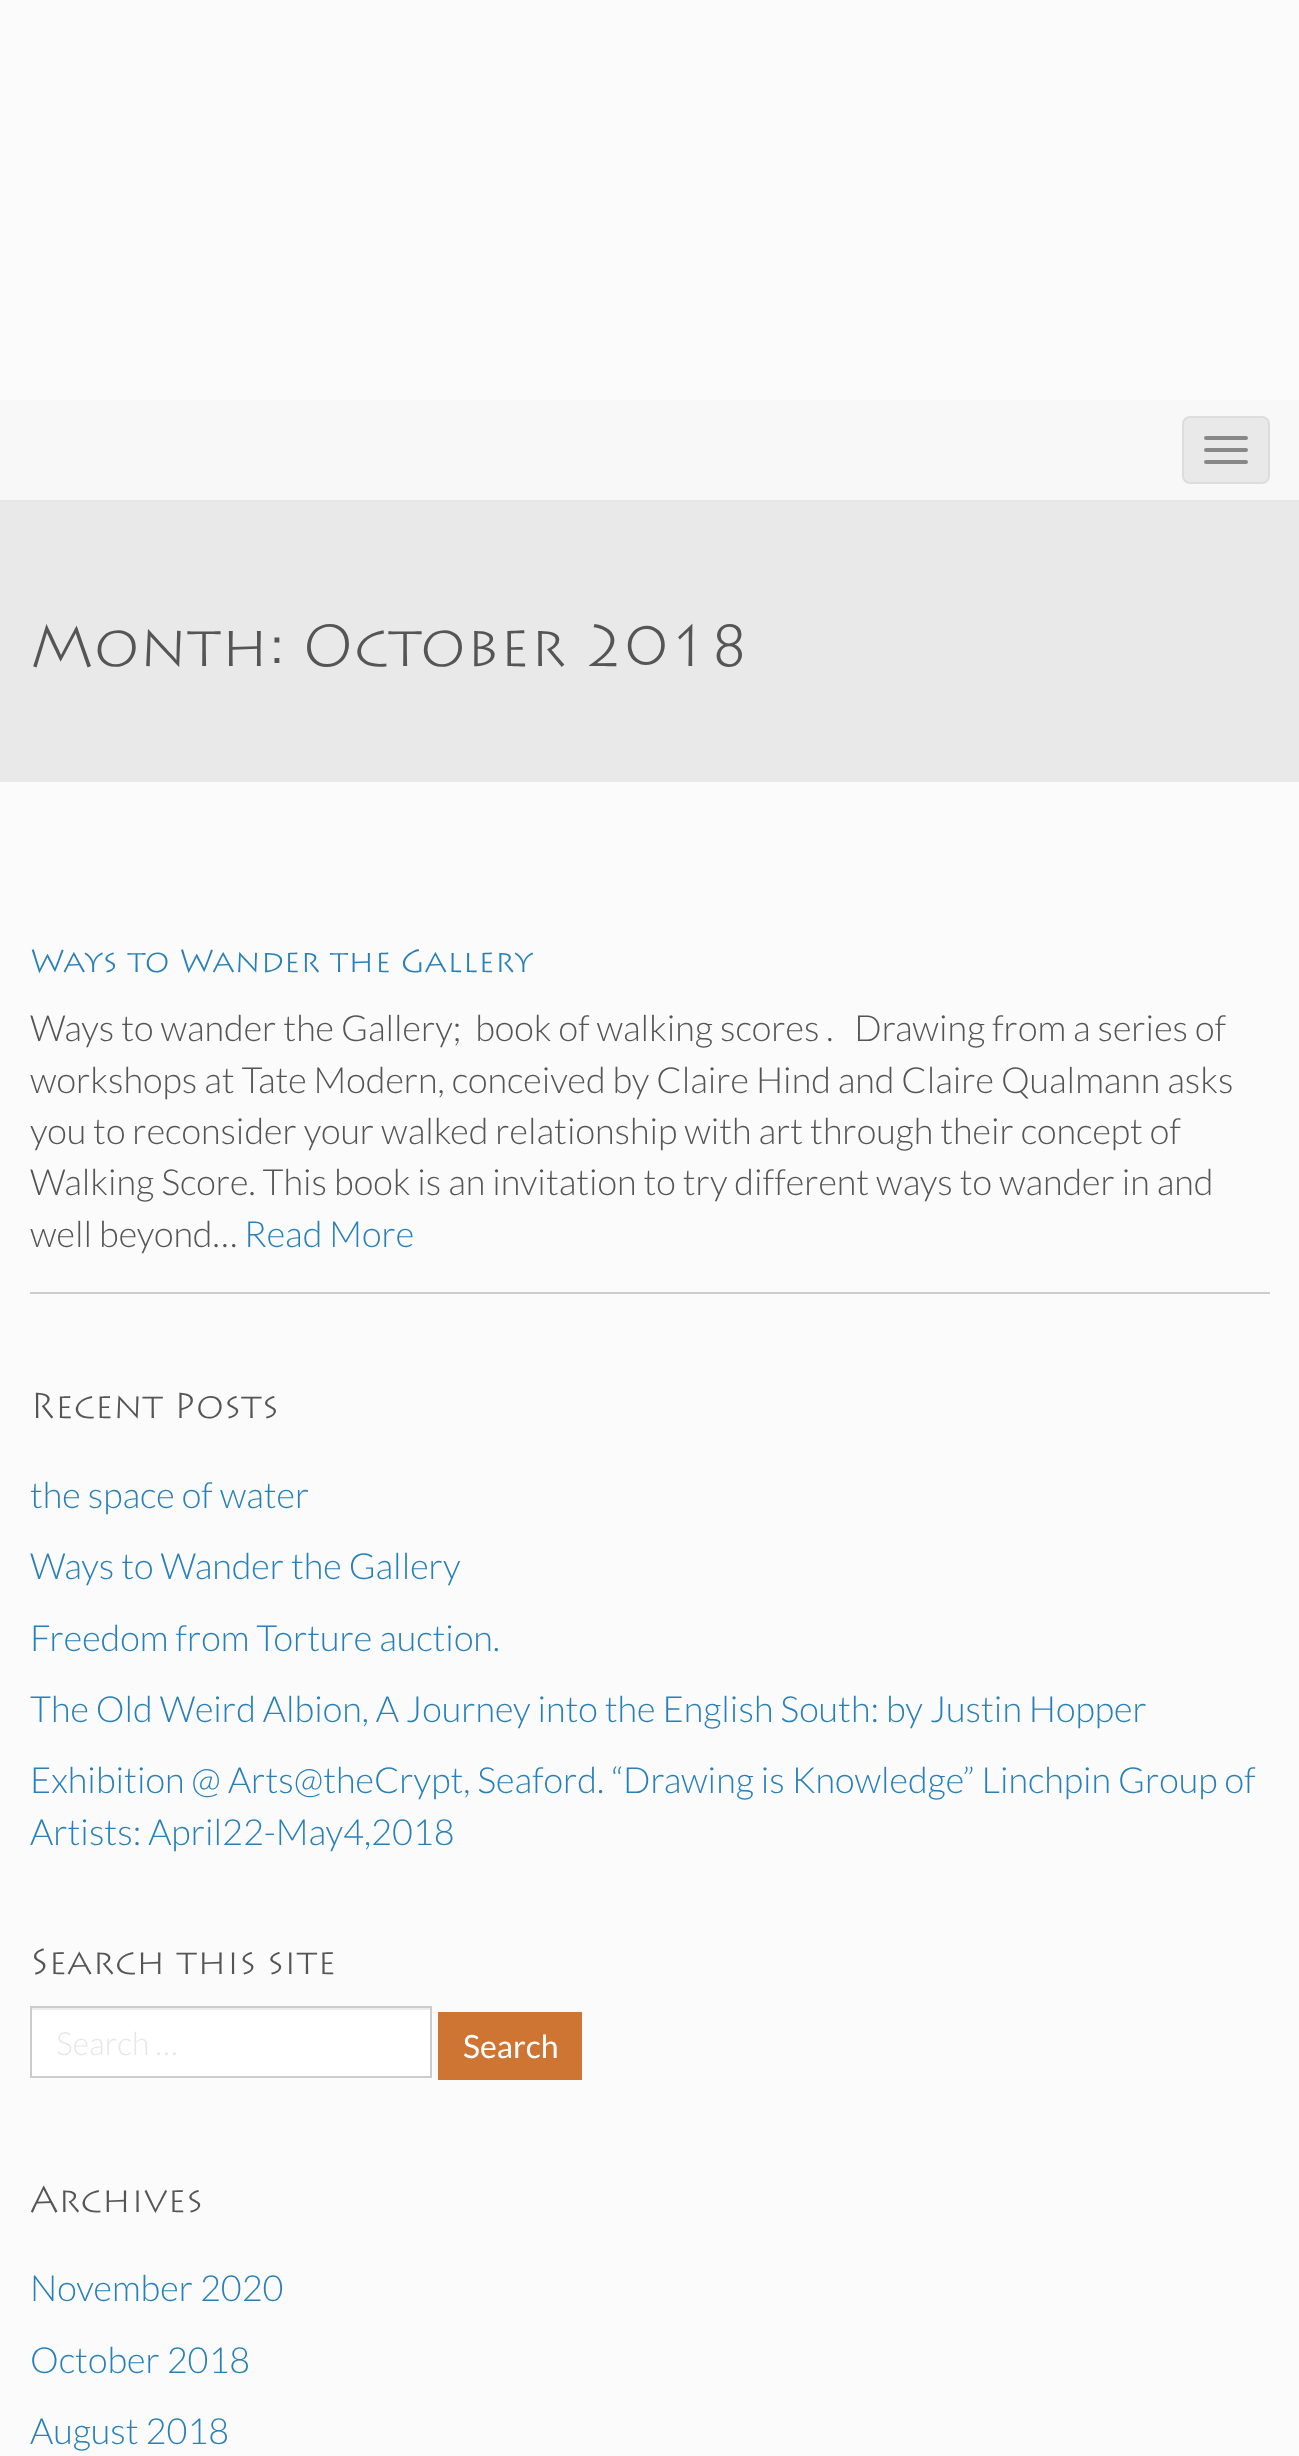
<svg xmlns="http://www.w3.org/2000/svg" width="1299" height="2456">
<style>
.a{font:300 58.75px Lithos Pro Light;fill:#555}
.b{font:300 32px Lithos Pro Light;fill:#2980b9}
.c{font:300 36px Lato;fill:#555}
.d{font:300 36px Lato;fill:#2980b9}
.e{font:300 36px Lithos Pro Light;fill:#555}
.f{font:300 32px Lato;fill:#e7e7e7}
.g{font:32px Lato;fill:#fff}
</style>
<rect width="100%" height="100%" fill="#fbfbfb"/>
<path fill="#f8f8f8" d="M0 400h1299v100H0z"/>
<path fill="#e7e7e7" d="M0 500h1299v2H0z"/>
<rect fill="#e9e9e9" stroke="#ddd" stroke-width="2" x="1183" y="417" width="86" height="66" rx="7"/>
<rect fill="#888" x="1204" y="436" width="44" height="4" rx="2"/>
<rect fill="#888" x="1204" y="448" width="44" height="4" rx="2"/>
<rect fill="#888" x="1204" y="460" width="44" height="4" rx="2"/>
<path fill="#e9e9e9" d="M0 502h1299v280H0z"/>
<path fill="#ccc" d="M30 1292h1240v2H30z"/>
<path fill="#fff" d="M32 2010h398v66H32z"/>
<path fill="#ececec" d="M32 2008h398v2H32z"/>
<path fill="none" stroke="#ccc" stroke-width="2" d="M31 2007h400v70H31z"/>
<path fill="#ce7533" d="M438 2012h144v68H438z"/>
<text class="a" x="30" y="666">Month: October 2018</text>
<text class="b" x="30" y="972">Ways to Wander the Gallery</text>
<text class="c" xml:space="preserve" x="30" y="1041">Ways to wander the Gallery;  book of walking scores .   Drawing from a series of</text>
<text class="c" x="30" y="1093">workshops at Tate Modern, conceived by Claire Hind and Claire Qualmann asks</text>
<text class="c" x="30" y="1144">you to reconsider your walked relationship with art through their concept of</text>
<text class="c" x="30" y="1195">Walking Score. This book is an invitation to try different ways to wander in and</text>
<text class="c" x="30" y="1247">well beyond…</text>
<text class="d" x="244" y="1247">Read More</text>
<text class="e" x="30" y="1418">Recent Posts</text>
<text class="d" x="30" y="1508">the space of water</text>
<text class="d" x="30" y="1579">Ways to Wander the Gallery</text>
<text class="d" x="30" y="1651">Freedom from Torture auction.</text>
<text class="d" x="30" y="1722">The Old Weird Albion, A Journey into the English South: by Justin Hopper</text>
<text class="d" x="30" y="1793">Exhibition @ Arts@theCrypt, Seaford. “Drawing is Knowledge” Linchpin Group of</text>
<text class="d" x="30" y="1845">Artists: April22-May4,2018</text>
<text class="e" x="30" y="1974">Search this site</text>
<text class="f" x="56" y="2055">Search …</text>
<text class="g" x="463" y="2058">Search</text>
<text class="e" x="30" y="2212">Archives</text>
<text class="d" x="30" y="2301">November 2020</text>
<text class="d" x="30" y="2373">October 2018</text>
<text class="d" x="30" y="2444">August 2018</text>
</svg>
